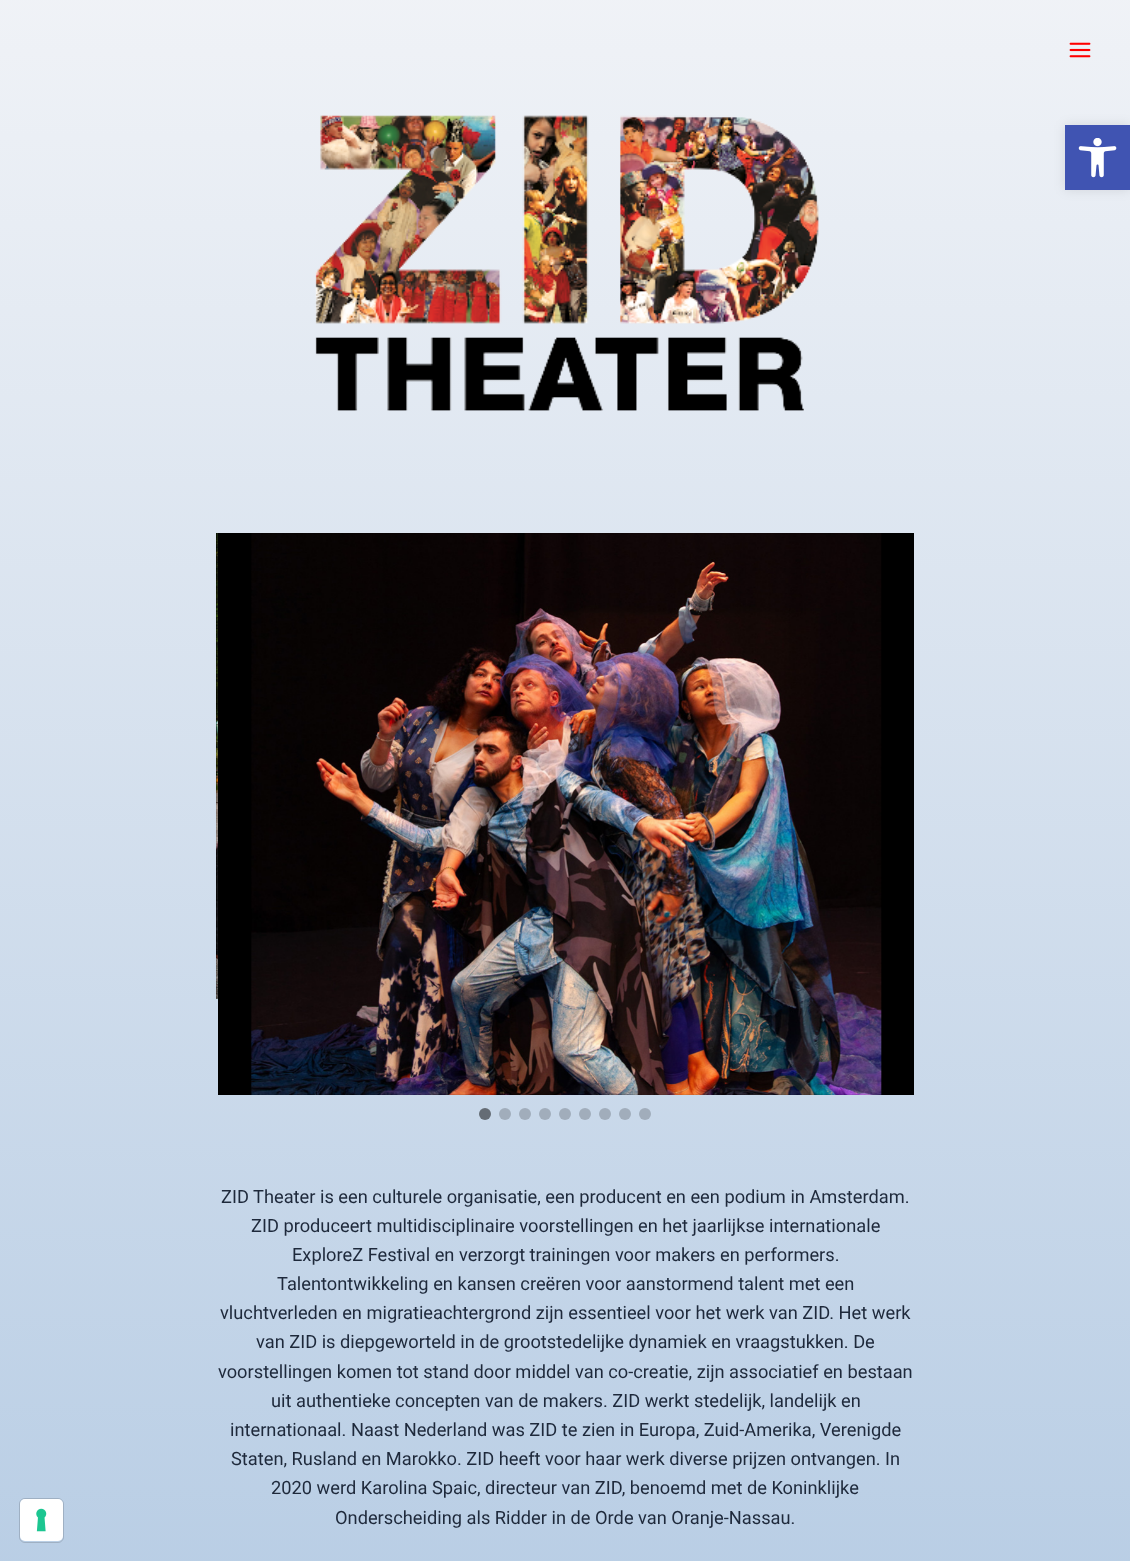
<svg xmlns="http://www.w3.org/2000/svg" width="1130" height="1561">
<style>
.a{font:18.25px Roboto;fill:#1e293b}
</style>
<defs>
<linearGradient id="g1" gradientUnits="userSpaceOnUse" x1="565" y1="-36" x2="565" y2="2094"><stop offset="0" stop-color="#f1f3f7"/><stop offset="1" stop-color="#a7c2df"/></linearGradient>
</defs>
<rect width="100%" height="100%" fill="#fff"/>
<path fill="url(#g1)" d="M0 0h1130v1561H0z"/>
<path fill="#0000001a" filter="blur(6px)" d="M1065 125h65v65H1065z"/>
<path fill="#4054b2" d="M1065 125h65v65H1065z"/>
<image href="1.png" x="1078" y="138" width="39" height="40"/>
<rect fill="none" stroke="#9fb0c3" x="19.5" y="1498.5" width="44" height="44" rx="5.5"/>
<rect fill="#fff" x="20" y="1499" width="43" height="42" rx="5"/>
<image href="2.png" x="36" y="1508" width="11" height="24"/>
<image href="3.png" x="1069" y="42" width="22" height="16"/>
<image href="4.png" x="315" y="115" width="504" height="296"/>
<image href="5.png" x="216" y="533" width="2" height="466"/>
<path fill="#000" d="M218 533h696v562H218z"/>
<image href="6.png" x="251" y="533" width="631" height="562"/>
<circle fill="#656c75" cx="485" cy="1114" r="6"/>
<circle fill="#a1adbb" cx="505" cy="1114" r="6"/>
<circle fill="#a1adbb" cx="525" cy="1114" r="6"/>
<circle fill="#a1adbb" cx="545" cy="1114" r="6"/>
<circle fill="#a1adbb" cx="565" cy="1114" r="6"/>
<circle fill="#a1adbb" cx="585" cy="1114" r="6"/>
<circle fill="#a1adbb" cx="605" cy="1114" r="6"/>
<circle fill="#a1adbb" cx="625" cy="1114" r="6"/>
<circle fill="#a1adbb" cx="645" cy="1114" r="6"/>
<text class="a" x="221" y="1203">ZID Theater is een culturele organisatie, een producent en een podium in Amsterdam.</text>
<text class="a" x="251" y="1232">ZID produceert multidisciplinaire voorstellingen en het jaarlijkse internationale</text>
<text class="a" x="292" y="1261">ExploreZ Festival en verzorgt trainingen voor makers en performers.</text>
<text class="a" x="277" y="1290">Talentontwikkeling en kansen creëren voor aanstormend talent met een</text>
<text class="a" x="220" y="1319">vluchtverleden en migratieachtergrond zijn essentieel voor het werk van ZID. Het werk</text>
<text class="a" x="256" y="1348">van ZID is diepgeworteld in de grootstedelijke dynamiek en vraagstukken. De</text>
<text class="a" x="218" y="1378">voorstellingen komen tot stand door middel van co-creatie, zijn associatief en bestaan</text>
<text class="a" x="271" y="1407">uit authentieke concepten van de makers. ZID werkt stedelijk, landelijk en</text>
<text class="a" x="230" y="1436">internationaal. Naast Nederland was ZID te zien in Europa, Zuid-Amerika, Verenigde</text>
<text class="a" x="231" y="1465">Staten, Rusland en Marokko. ZID heeft voor haar werk diverse prijzen ontvangen. In</text>
<text class="a" x="271" y="1494">2020 werd Karolina Spaic, directeur van ZID, benoemd met de Koninklijke</text>
<text class="a" x="335" y="1524">Onderscheiding als Ridder in de Orde van Oranje-Nassau.</text>
</svg>
